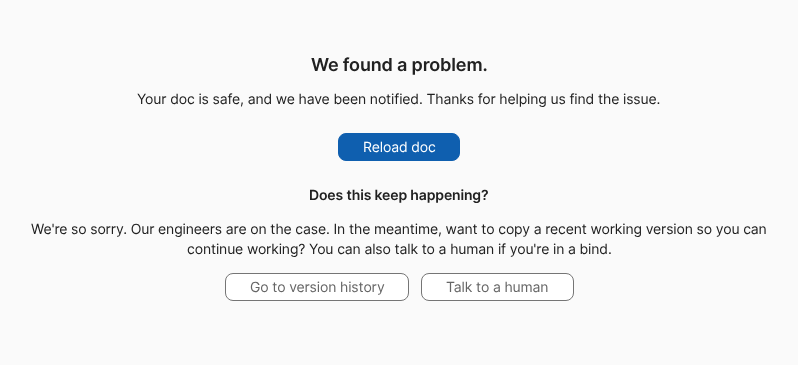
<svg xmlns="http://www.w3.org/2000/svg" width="798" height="365">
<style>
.a{font:600 18px Inter;letter-spacing:-0.14px;fill:#212121}
.b{font:14px Inter;letter-spacing:-0.14px;fill:#212121}
.c{font:14px Inter;letter-spacing:-0.14px;fill:#fff}
.d{font:600 14px Inter;letter-spacing:-0.14px;fill:#212121}
.e{font:14px Inter;letter-spacing:-0.14px;fill:#666}
</style>
<rect width="100%" height="100%" fill="#fafafa"/>
<rect fill="#0f5faf" stroke="#0f5faf" x="338.5" y="133.5" width="121" height="27" rx="7.5"/>
<rect fill="#fff" stroke="#757575" x="225.5" y="273.5" width="183" height="27" rx="7.5"/>
<rect fill="#fff" stroke="#757575" x="421.5" y="273.5" width="152" height="27" rx="7.5"/>
<text class="a" x="311" y="71">We found a problem.</text>
<text class="b" x="137" y="104">Your doc is safe, and we have been notified. Thanks for helping us find the issue.</text>
<text class="c" x="363" y="152">Reload doc</text>
<text class="d" x="309" y="200">Does this keep happening?</text>
<text class="b" x="31" y="234">We're so sorry. Our engineers are on the case. In the meantime, want to copy a recent working version so you can</text>
<text class="b" x="187" y="254">continue working? You can also talk to a human if you're in a bind.</text>
<text class="e" x="250" y="292">Go to version history</text>
<text class="e" x="446" y="292">Talk to a human</text>
</svg>
